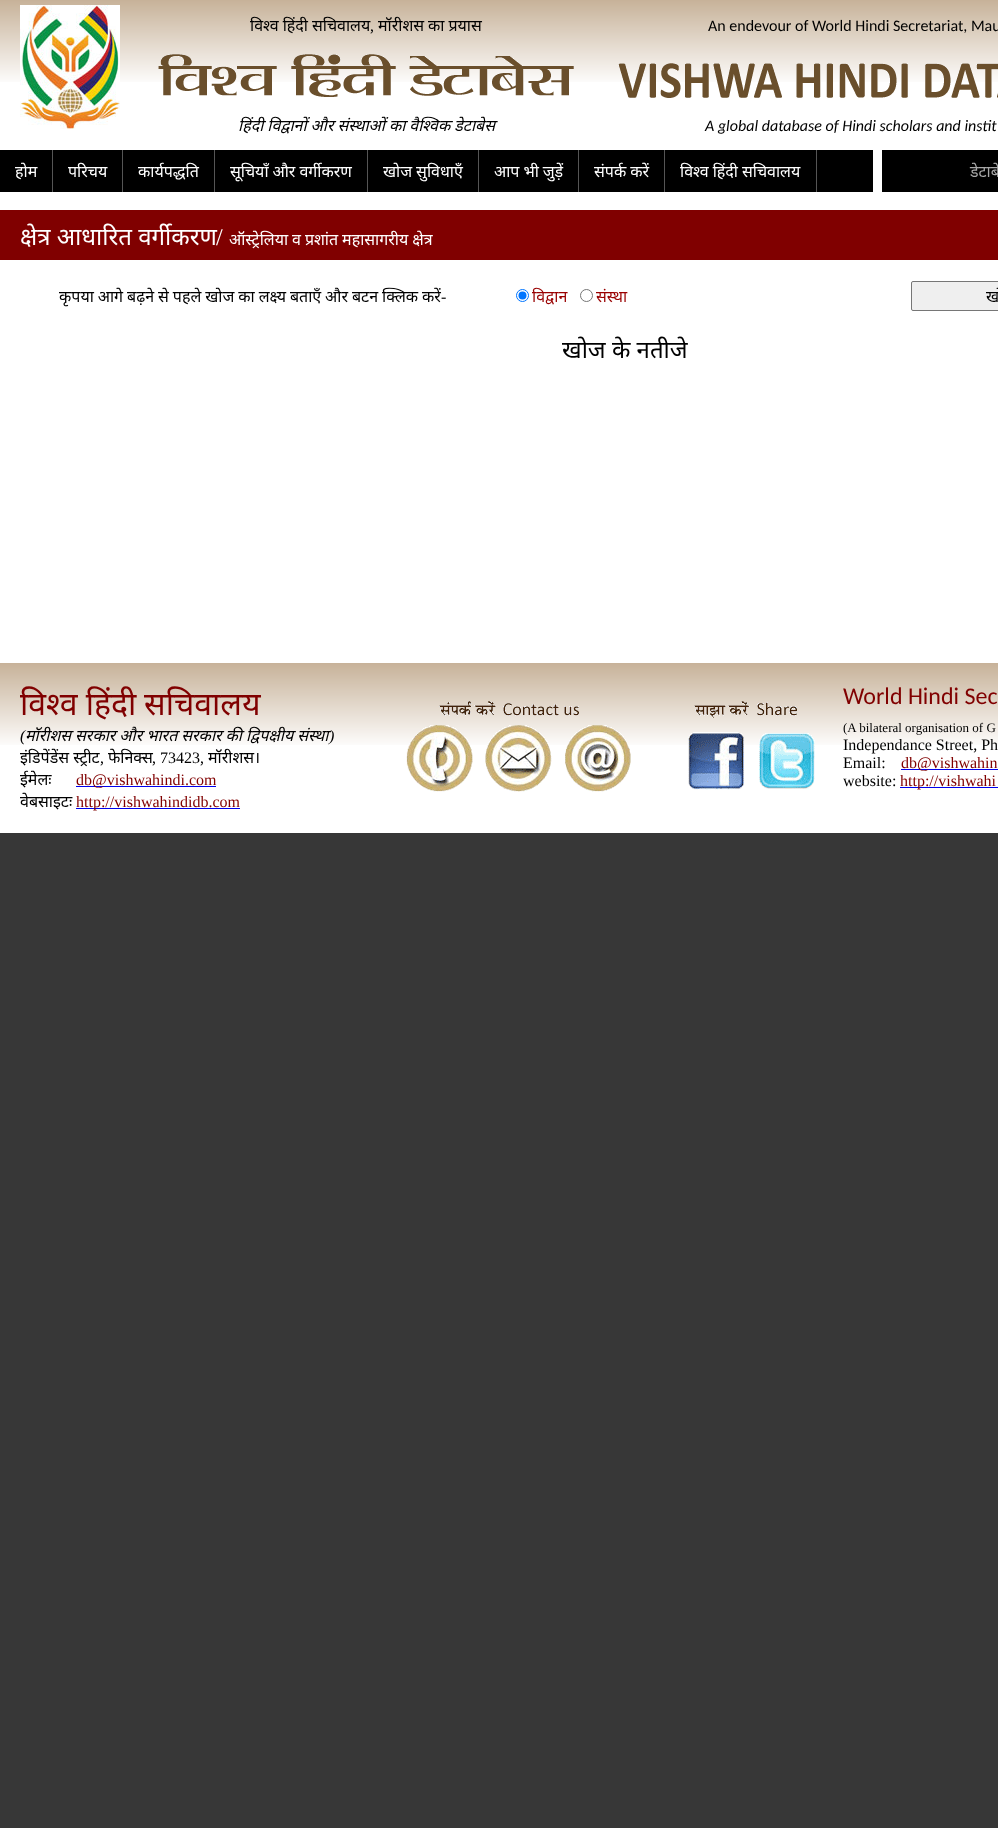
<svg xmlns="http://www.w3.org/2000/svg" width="998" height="1828">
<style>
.a{font:16px Noto Sans;fill:#000}
.b{font:16px Liberation Serif;fill:#000}
.c{font:16px Carlito;fill:#000}
.d{font:italic 16px Noto Sans;fill:#000}
.e{font:italic 16px Carlito;fill:#000}
.f{font:16px Noto Sans;fill:#fff}
.g{font:16px Noto Sans;fill:#a9a9a9}
.h{font:24px Noto Sans;fill:#fff}
.i{font:24px Liberation Serif;fill:#fff}
.j{font:16px Noto Sans;fill:#900}
.k{font:24px Noto Sans;fill:#000}
.l{font:32px Noto Sans;fill:#800000}
.m{font:italic 16px Liberation Serif;fill:#000}
.n{font:16px Liberation Serif;fill:#800000}
.o{font:24px Carlito;fill:#800000}
.p{font:13px Liberation Serif;fill:#000}
</style>
<rect width="100%" height="100%" fill="#373737"/>
<path fill="#fff" d="M0 82h998v751H0z"/>
<image href="1.png" x="0" y="0" width="998" height="82"/>
<image href="2.png" x="20" y="5" width="100" height="124"/>
<image href="3.png" x="158" y="54" width="416" height="43"/>
<image href="4.png" x="618" y="63" width="380" height="35"/>
<path fill="#000" d="M0 150h873v42H0z"/>
<path fill="#555" d="M52 150h1v42H52z"/>
<path fill="#555" d="M122 150h1v42H122z"/>
<path fill="#555" d="M214 150h1v42H214z"/>
<path fill="#555" d="M367 150h1v42H367z"/>
<path fill="#555" d="M478 150h1v42H478z"/>
<path fill="#555" d="M578 150h1v42H578z"/>
<path fill="#555" d="M664 150h1v42H664z"/>
<path fill="#555" d="M816 150h1v42H816z"/>
<path fill="#000" d="M882 150h116v42H882z"/>
<path fill="#800000" d="M0 210h998v50H0z"/>
<circle fill="none" stroke="#0075ff" cx="522.5" cy="295.5" r="6"/>
<circle fill="#0075ff" cx="522.5" cy="295.5" r="4"/>
<circle fill="none" stroke="#767676" cx="586.5" cy="295.5" r="6"/>
<rect fill="#efefef" stroke="#767676" x="911.5" y="281.5" width="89" height="29" rx="1.5"/>
<image href="1.png" x="0" y="663" width="998" height="82"/>
<path fill="#00e" d="M76 786h140v1H76z"/>
<path fill="#00e" d="M76 808h164v1H76z"/>
<image href="5.png" x="406" y="701" width="409" height="91"/>
<path fill="#00e" d="M901 769h97v1H901z"/>
<path fill="#00e" d="M900 787h98v1H900z"/>
<text class="a" x="250" y="31" word-spacing="-0.2">विश्व हिंदी सचिवालय</text>
<text class="b" x="370" y="31">,</text>
<text class="a" x="378" y="31" word-spacing="-0.2">मॉरीशस का प्रयास</text>
<text class="c" x="708" y="31">An endevour of World Hindi Secretariat, Mau</text>
<text class="d" x="238" y="131" word-spacing="-0.2">हिंदी विद्वानों और संस्थाओं का वैश्विक डेटाबेस</text>
<text class="e" x="705" y="131">A global database of Hindi scholars and instit</text>
<text class="f" x="15" y="177">होम</text>
<text class="f" x="68" y="177">परिचय</text>
<text class="f" x="138" y="177">कार्यपद्धति</text>
<text class="f" x="230" y="177" word-spacing="-0.2">सूचियाँ और वर्गीकरण</text>
<text class="f" x="383" y="177" word-spacing="-0.2">खोज सुविधाएँ</text>
<text class="f" x="494" y="177" word-spacing="-0.2">आप भी जुड़ें</text>
<text class="f" x="594" y="177" word-spacing="-0.2">संपर्क करें</text>
<text class="f" x="680" y="177" word-spacing="-0.2">विश्व हिंदी सचिवालय</text>
<text class="g" x="970" y="177" word-spacing="-0.2">डेटाबे</text>
<text class="h" x="20" y="245">क्षेत्र आधारित वर्गीकरण</text>
<text class="i" x="216" y="245">/</text>
<text class="f" x="229" y="245" word-spacing="-0.2">ऑस्ट्रेलिया व प्रशांत महासागरीय क्षेत्र</text>
<text class="a" x="59" y="302" word-spacing="-0.2">कृपया आगे बढ़ने से पहले खोज का लक्ष्य बताएँ और बटन क्लिक करें</text>
<text class="b" x="441" y="302">-</text>
<text class="j" x="532" y="302">विद्वान</text>
<text class="j" x="596" y="302">संस्था</text>
<text class="a" x="986" y="302">खो</text>
<text class="k" x="562" y="358">खोज के नतीजे</text>
<text class="l" x="20" y="715">विश्व हिंदी</text>
<text class="l" x="144" y="715">सचिवालय</text>
<text class="m" x="20" y="741">(</text>
<text class="d" x="25" y="741" word-spacing="-0.2">मॉरीशस सरकार और भारत सरकार की द्विपक्षीय संस्था</text>
<text class="m" x="329" y="741">)</text>
<text class="a" x="20" y="763">इंडिपेंडेंस स्ट्रीट</text>
<text class="a" x="208" y="763">मॉरीशस।</text>
<text class="b" x="100" y="763">,</text>
<text class="a" x="108" y="763">फेनिक्स</text>
<text class="b" x="152" y="763">, 73423,</text>
<text class="a" x="20" y="785">ईमेलः</text>
<text class="n" x="76" y="785">db@vishwahindi.com</text>
<text class="a" x="20" y="807">वेबसाइटः</text>
<text class="n" x="76" y="807">http://vishwahindidb.com</text>
<text class="o" x="843" y="704">World Hindi Sec</text>
<text class="p" x="843" y="732">(A bilateral organisation of G</text>
<text class="b" x="843" y="750">Independance Street, Ph</text>
<text class="b" x="843" y="768">Email:</text>
<text class="n" x="901" y="768">db@vishwahin</text>
<text class="b" x="843" y="786">website:</text>
<text class="n" x="900" y="786">http://vishwahi</text>
</svg>
